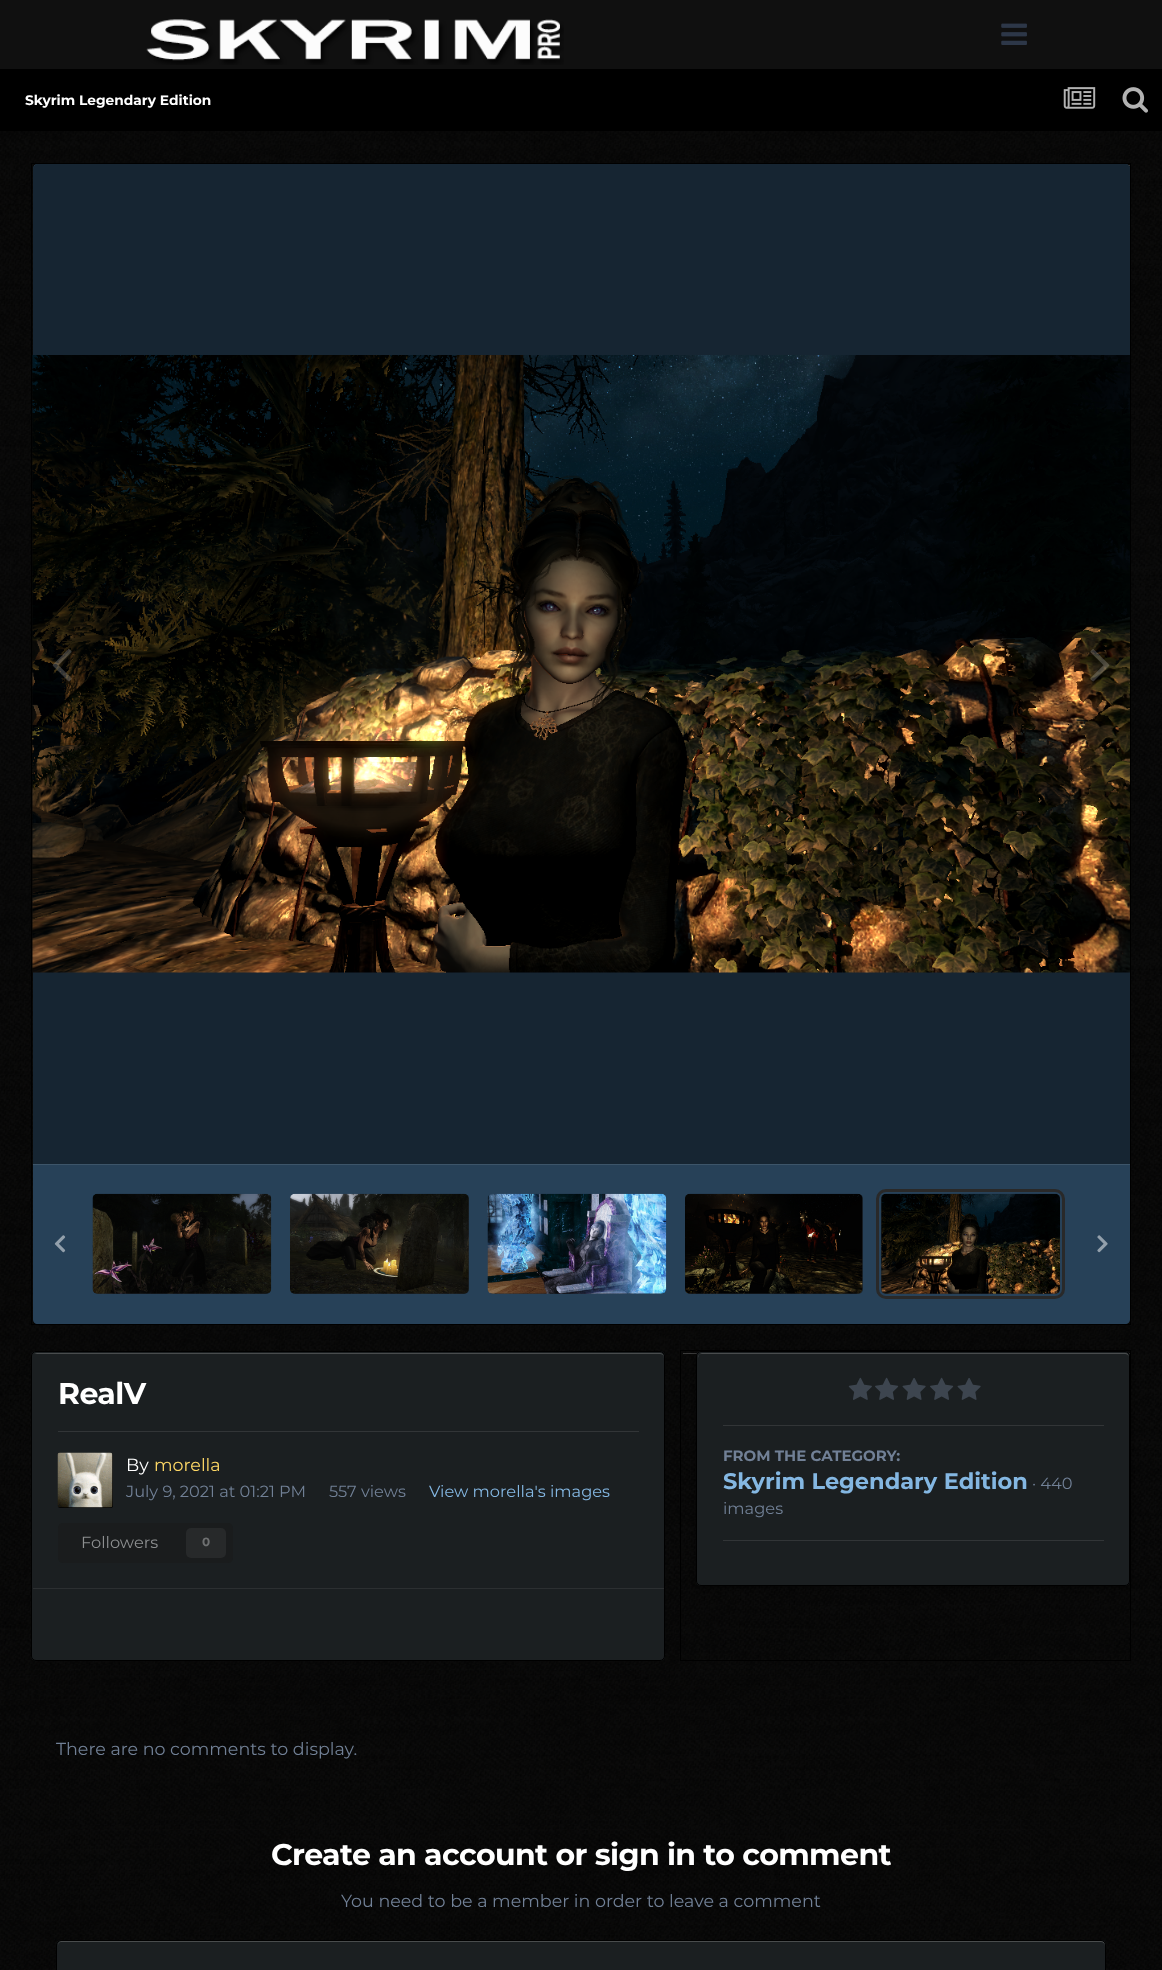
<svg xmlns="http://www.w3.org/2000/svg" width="1162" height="1970">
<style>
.a{font:bold 13.75px Montserrat;fill:#fff}
.b{font:bold 30px Montserrat;letter-spacing:-0.6px;fill:#fff}
.c{font:17.5px Montserrat;fill:#fff}
.d{font:17.5px Montserrat;fill:#ffd966}
.e{font:16.25px Montserrat;fill:#718096}
.f{font:16.25px Montserrat;fill:#84b7e2}
.g{font:16.25px Montserrat;fill:#8d8f90}
.h{font:bold 12px Montserrat;fill:#6e7071}
.i{font:bold 15px Montserrat;fill:#718096}
.j{font:bold 22.5px Montserrat;fill:#84b7e2}
.k{font:17.5px Montserrat;fill:#718096}
</style>
<rect width="100%" height="100%" fill="#000"/>
<image href="1.png" x="0" y="131" width="1162" height="1839"/>
<path fill="#101010" d="M0 0h1162v69H0z"/>
<image href="2.png" x="146" y="19" width="418" height="46"/>
<image href="3.png" x="1001" y="23" width="26" height="22"/>
<image href="4.png" x="1063" y="87" width="33" height="22"/>
<image href="5.png" x="1122" y="87" width="26" height="26"/>
<path fill="#000" d="M31 163h1100v1H31z"/>
<path fill="#000" d="M1130 163h1v1162H1130z"/>
<path fill="#000" d="M31 1324h1100v1H31z"/>
<path fill="#000" d="M31 163h1v1162H31z"/>
<path fill="#ffffff33" d="M34 165h1096v1H34z"/>
<path fill="#395e7e" d="M38 164h1087c3 0 5 2 5 5v995h-1097v-995c0-3 2-5 5-5z"/>
<path fill="#00000099" d="M38 164h1087c3 0 5 2 5 5v995h-1097v-995c0-3 2-5 5-5z"/>
<image href="6.png" x="32" y="355" width="1098" height="618"/>
<image href="7.png" x="52" y="649" width="20" height="33"/>
<image href="8.png" x="1090" y="649" width="20" height="33"/>
<path fill="#395e7e" d="M33 1164h1097v155c0 3-2 5-5 5h-1087c-3 0-5-2-5-5z"/>
<path fill="#0000004d" d="M33 1164h1097v155c0 3-2 5-5 5h-1087c-3 0-5-2-5-5z"/>
<path fill="#3d5569" d="M33 1164h1097v1H33z"/>
<rect fill="#141414" x="93" y="1194" width="178" height="100" rx="5"/>
<rect fill="#395e7e4d" x="93" y="1194" width="178" height="100" rx="5"/>
<image href="9.png" x="92" y="1193" width="180" height="101"/>
<rect fill="#141414" x="290" y="1194" width="179" height="100" rx="5"/>
<rect fill="#395e7e4d" x="290" y="1194" width="179" height="100" rx="5"/>
<image href="10.png" x="290" y="1193" width="179" height="101"/>
<rect fill="#141414" x="488" y="1194" width="178" height="100" rx="5"/>
<rect fill="#395e7e4d" x="488" y="1194" width="178" height="100" rx="5"/>
<image href="11.png" x="487" y="1193" width="180" height="101"/>
<rect fill="#141414" x="685" y="1194" width="178" height="100" rx="5"/>
<rect fill="#395e7e4d" x="685" y="1194" width="178" height="100" rx="5"/>
<image href="12.png" x="685" y="1193" width="178" height="101"/>
<rect fill="#141414" x="881" y="1194" width="179" height="100" rx="5"/>
<rect fill="#395e7e4d" x="881" y="1194" width="179" height="100" rx="5"/>
<rect fill="none" stroke="#292929" stroke-width="3" x="877.5" y="1190.5" width="186" height="107" rx="8.5"/>
<image href="13.png" x="881" y="1193" width="179" height="101"/>
<image href="14.png" x="54" y="1235" width="12" height="18"/>
<image href="15.png" x="1097" y="1235" width="11" height="18"/>
<rect fill="#1b1f21" x="31" y="1351" width="634" height="310" rx="5"/>
<path fill="#494c4d" d="M36 1354h624c2 0 4 1 4 4v-1c0-2-2-4-4-4h-623c-1 0-2 1-3 1z"/>
<rect fill="none" stroke="#000" x="31.5" y="1351.5" width="633" height="309" rx="4.5"/>
<path fill="#323537" d="M58 1431h581v1H58z"/>
<rect fill="#000" x="58" y="1453" width="55" height="55" rx="2.5"/>
<image href="16.png" x="57" y="1452" width="56" height="56"/>
<rect fill="#1a1c1d" x="58" y="1523" width="175" height="40" rx="5"/>
<rect fill="#27292a" x="186" y="1528" width="40" height="30" rx="5"/>
<path fill="#2c2f31" d="M33 1588h631v1H33z"/>
<path fill="#000" d="M680 1350h451v1H680z"/>
<path fill="#000" d="M1130 1350h1v311H1130z"/>
<path fill="#000" d="M680 1660h451v1H680z"/>
<path fill="#000" d="M680 1350h1v311H680z"/>
<path fill="#ffffff33" d="M683 1353h447v1H683z"/>
<rect fill="#0000004d" filter="blur(2px)" x="696" y="1353" width="434" height="235" rx="5"/>
<rect fill="#1b1f21" x="696" y="1351" width="434" height="235" rx="5"/>
<path fill="#494c4d" d="M701 1354h424c2 0 4 1 4 4c0-3-1-5-4-5h-423c-1 0-3 1-3 2l-1 3c0-3 1-4 3-4z"/>
<rect fill="none" stroke="#000" x="696.5" y="1351.5" width="433" height="234" rx="4.5"/>
<image href="17.png" x="848" y="1377" width="24" height="23"/>
<image href="18.png" x="875" y="1377" width="24" height="23"/>
<image href="19.png" x="902" y="1378" width="24" height="22"/>
<image href="18.png" x="930" y="1377" width="24" height="23"/>
<image href="19.png" x="957" y="1378" width="24" height="22"/>
<path fill="#323537" d="M723 1425h381v1H723z"/>
<path fill="#323537" d="M723 1540h381v1H723z"/>
<rect fill="#1b1f21" x="56" y="1940" width="1050" height="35" rx="5"/>
<path fill="#494c4d" d="M61 1942h1040c2 0 4 2 4 4c0-3-1-5-4-5h-1039c-3 0-4 2-4 5c0-2 1-4 3-4z"/>
<rect fill="none" stroke="#000" x="56.5" y="1940.5" width="1049" height="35" rx="4.5"/>
<text class="a" x="25" y="105">Skyrim Legendary Edition</text>
<text class="b" x="58" y="1404">RealV</text>
<text class="c" x="126" y="1471">By</text>
<text class="d" x="154" y="1471">morella</text>
<text class="e" x="126" y="1497">July 9, 2021 at 01:21 PM</text>
<text class="e" x="329" y="1497">557 views</text>
<text class="f" x="429" y="1497">View morella's images</text>
<text class="g" x="81" y="1548">Followers</text>
<text class="h" x="202" y="1546">0</text>
<text class="i" x="723" y="1461">FROM THE CATEGORY:</text>
<text class="j" x="723" y="1489">Skyrim Legendary Edition</text>
<text class="e" x="1032" y="1489">· 440</text>
<text class="e" x="723" y="1514">images</text>
<text class="k" x="56" y="1755">There are no comments to display.</text>
<text class="b" x="271" y="1865">Create an account or sign in to comment</text>
<text class="k" x="341" y="1907">You need to be a member in order to leave a comment</text>
</svg>
